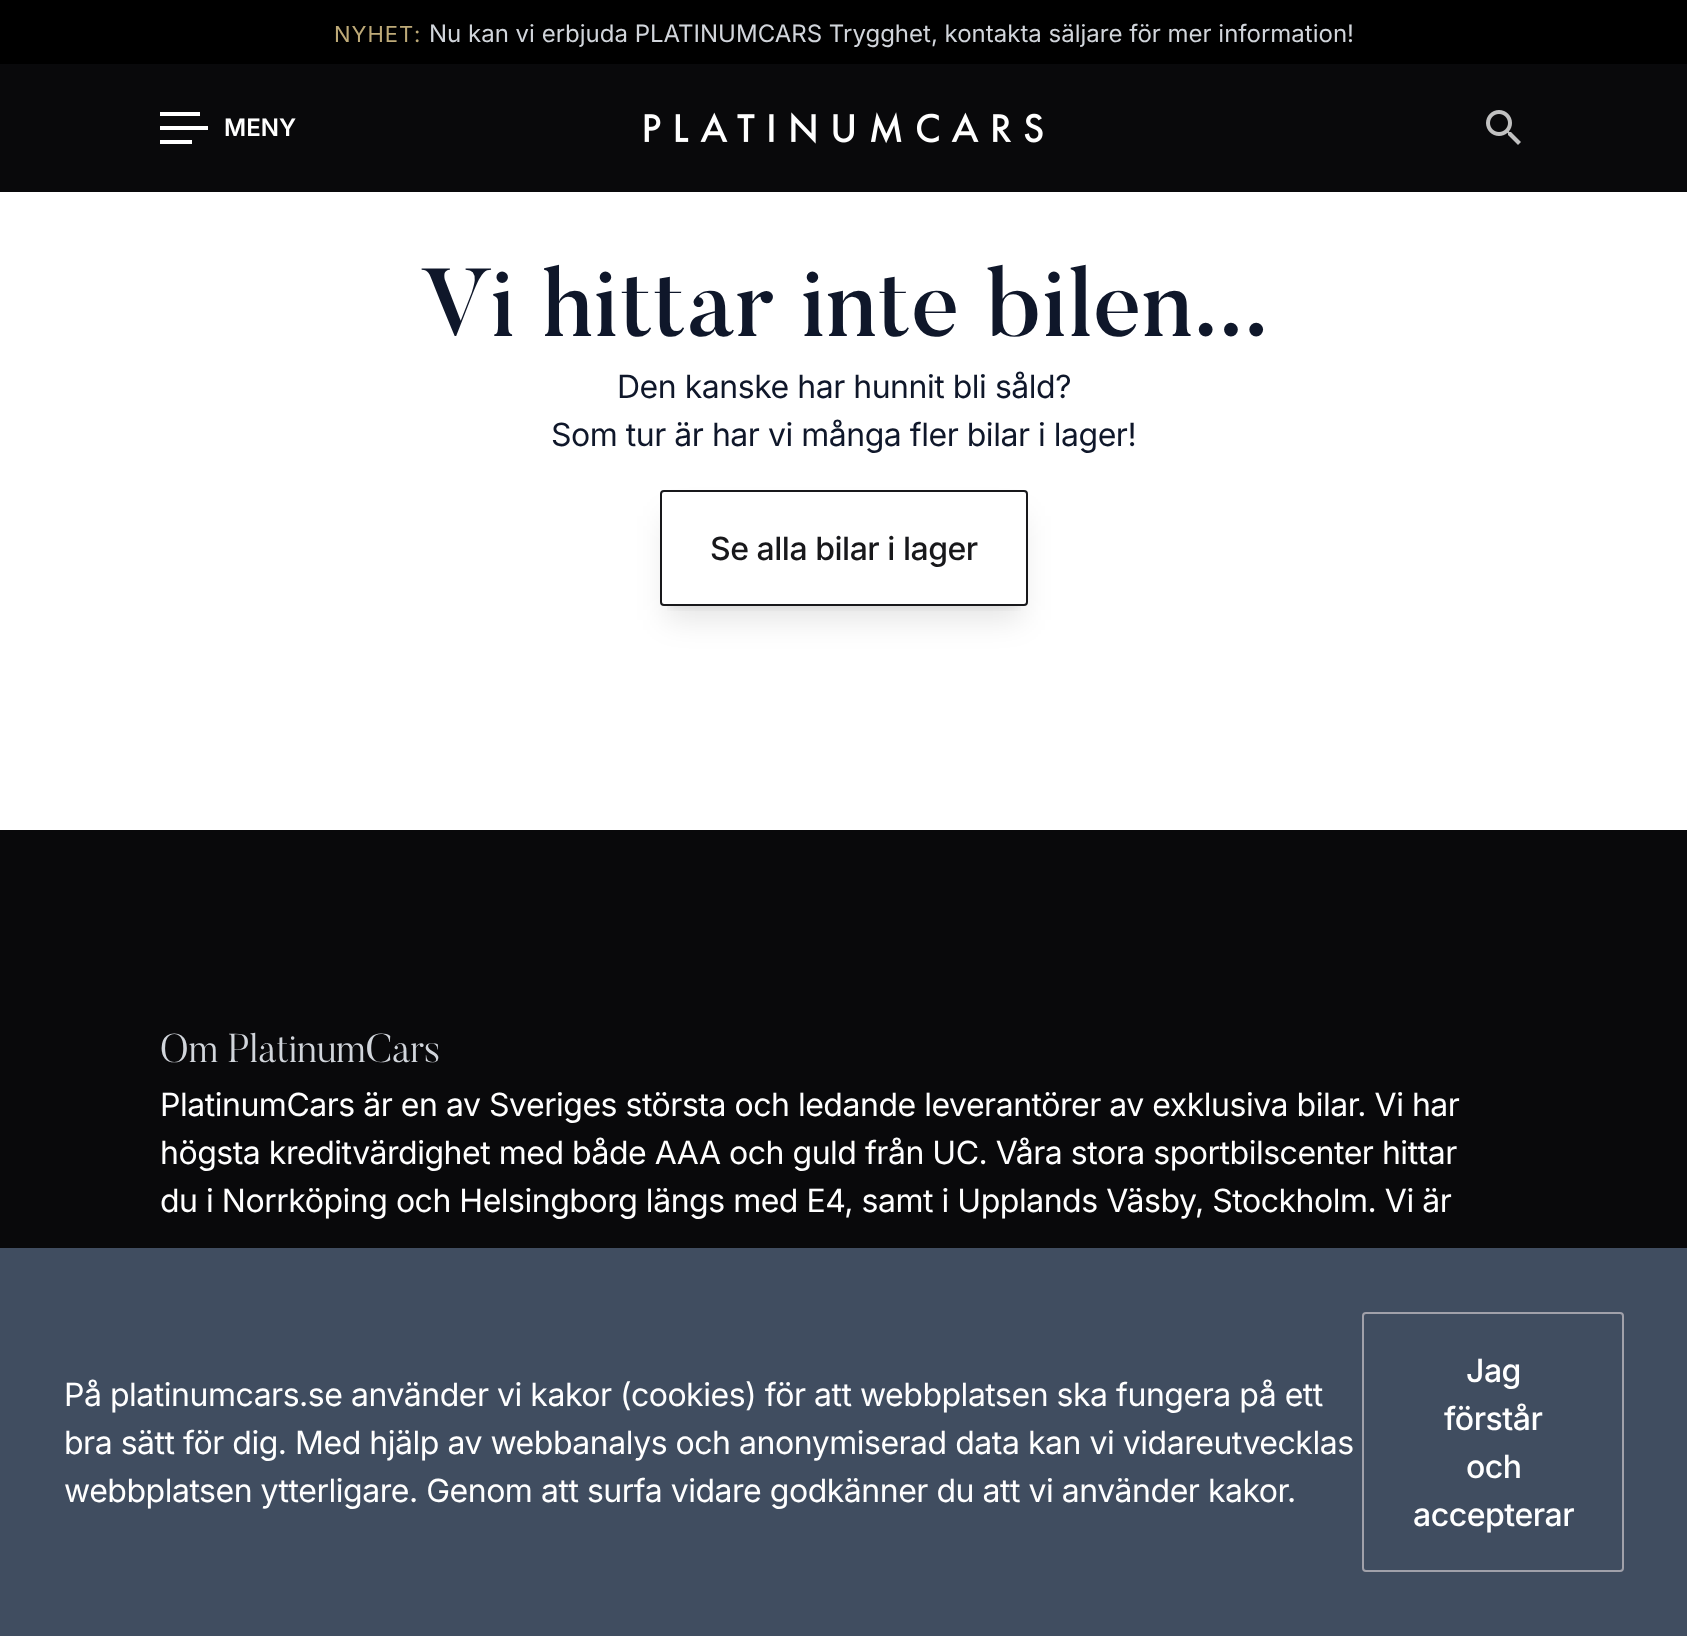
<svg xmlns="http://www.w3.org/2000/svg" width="1687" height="1636">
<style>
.a{font:22px Inter;letter-spacing:1px;fill:#beaa78}
.b{font:24px Inter;fill:#d1d5db}
.c{font:600 24px Inter;fill:#fff}
.d{font:500 96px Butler;letter-spacing:1px;fill:#0f172a}
.e{font:32px Inter;letter-spacing:-0.48px;fill:#0f172a}
.f{font:500 32px Inter;letter-spacing:-0.48px;fill:#18181b}
.g{font:300 40px Butler;fill:#d1d5db}
.h{font:32px Inter;letter-spacing:-0.48px;fill:#fff}
.i{font:500 32px Inter;letter-spacing:-0.48px;fill:#fff}
</style>
<defs>
<clipPath id="clip1"><path d="M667 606h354v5H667z"/></clipPath>
<clipPath id="clip2"><path d="M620 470h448v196h-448zm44 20h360c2 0 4 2 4 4v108c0 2-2 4-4 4h-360c-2 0-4-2-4-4v-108c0-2 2-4 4-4z" clip-rule="evenodd"/></clipPath>
</defs>
<rect width="100%" height="100%" fill="#fff"/>
<path fill="#09090b" d="M0 64h1687v128H0z"/>
<path fill="#000" d="M0 0h1687v64H0z"/>
<path fill="#fff" d="M160 126h48v4H160z"/>
<path fill="#fff" d="M160 112h40v4H160z"/>
<path fill="#fff" d="M160 140h32v4H160z"/>
<image href="1.png" x="644" y="112" width="399" height="32"/>
<image href="2.png" x="1486" y="110" width="35" height="35"/>
<g clip-path="url(#clip1)">
<path fill="#0000001a" filter="blur(6px)" d="M668 506h352v100H668z"/>
</g>
<g clip-path="url(#clip2)">
<path fill="#0000001a" filter="blur(15px)" d="M666 516h356v104H666z"/>
</g>
<rect fill="none" stroke="#18181b" stroke-width="2" x="661" y="491" width="366" height="114" rx="3"/>
<path fill="#09090b" d="M0 830h1687v806H0z"/>
<path fill="#475569e6" d="M0 1248h1687v388H0z"/>
<rect fill="none" stroke="#a1a1aa" stroke-width="2" x="1363" y="1313" width="260" height="258" rx="3"/>
<text class="a" x="334" y="42">NYHET</text>
<text class="a" x="414" y="42">:</text>
<text class="b" x="429" y="42">Nu kan vi erbjuda PLATINUMCARS Trygghet, kontakta säljare för mer information!</text>
<text class="c" x="224" y="136">MENY</text>
<text class="d" x="420" y="336">Vi hittar inte bilen...</text>
<text class="e" x="617" y="398">Den kanske har hunnit bli såld?</text>
<text class="e" x="551" y="446">Som tur är har vi många fler bilar i lager!</text>
<text class="f" x="710" y="560">Se alla bilar i lager</text>
<text class="g" x="160" y="1062">Om PlatinumCars</text>
<text class="h" x="160" y="1116">PlatinumCars är en av Sveriges största och ledande leverantörer av exklusiva bilar. Vi har</text>
<text class="h" x="160" y="1164">högsta kreditvärdighet med både AAA och guld från UC. Våra stora sportbilscenter hittar</text>
<text class="h" x="160" y="1212">du i Norrköping och Helsingborg längs med E4, samt i Upplands Väsby, Stockholm. Vi är</text>
<text class="h" x="64" y="1406">På platinumcars.se använder vi kakor (cookies) för att webbplatsen ska fungera på ett</text>
<text class="h" x="64" y="1454">bra sätt för dig. Med hjälp av webbanalys och anonymiserad data kan vi vidareutvecklas</text>
<text class="h" x="64" y="1502">webbplatsen ytterligare. Genom att surfa vidare godkänner du att vi använder kakor.</text>
<text class="i" x="1466" y="1382">Jag</text>
<text class="i" x="1444" y="1430">förstår</text>
<text class="i" x="1466" y="1478">och</text>
<text class="i" x="1413" y="1526">accepterar</text>
</svg>
